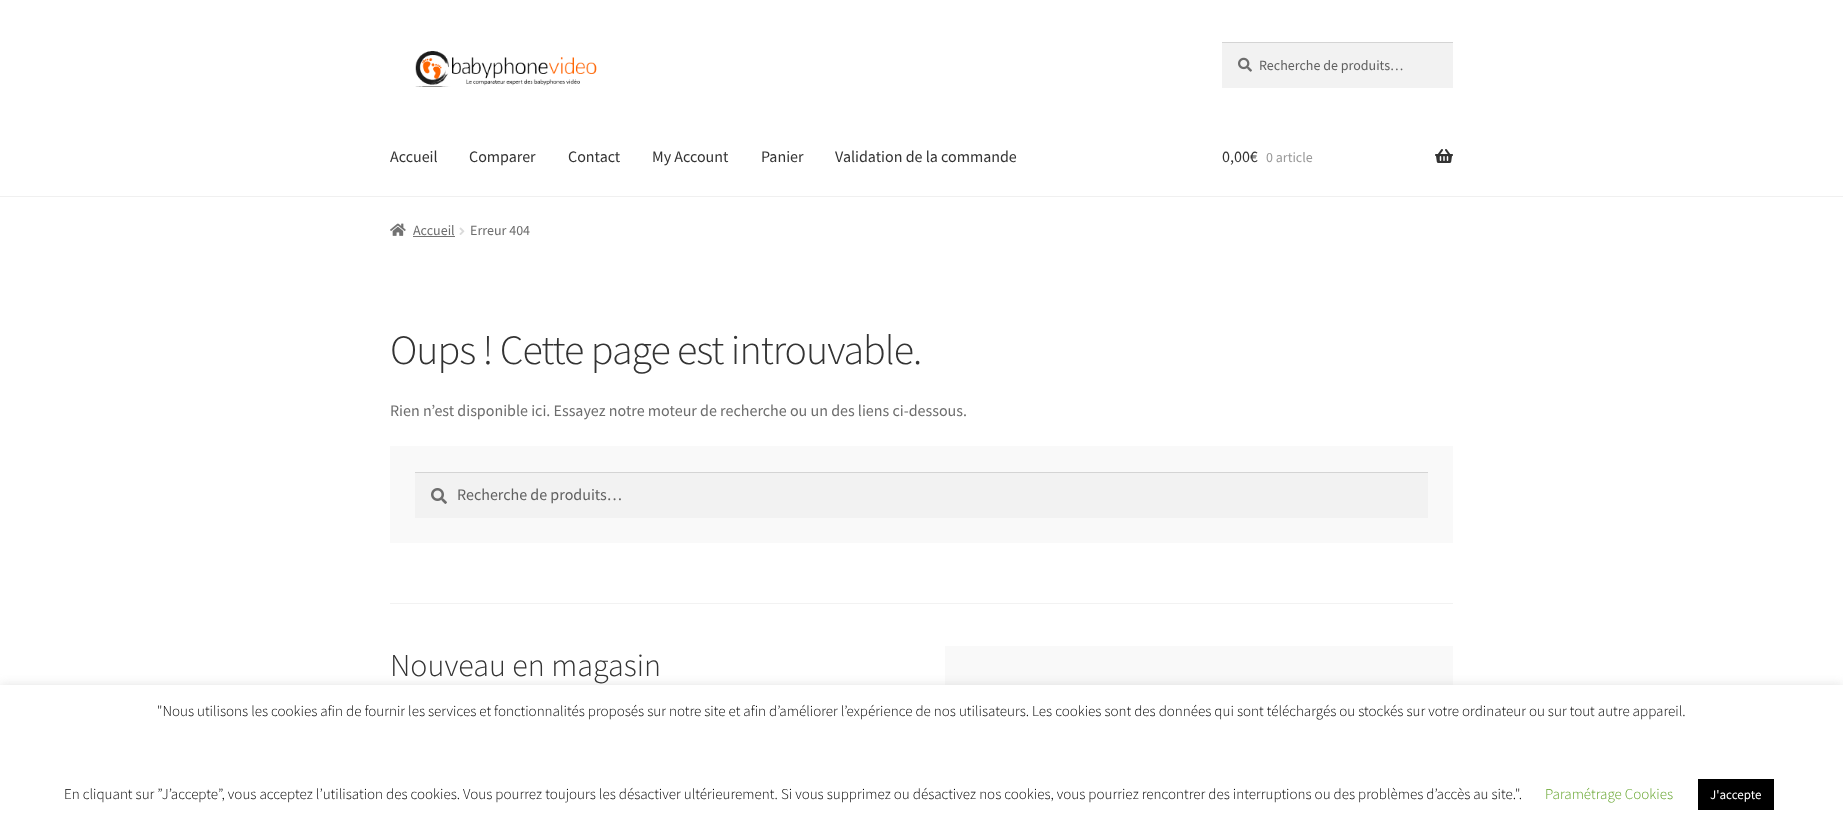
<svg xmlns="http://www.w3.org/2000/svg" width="1843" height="827">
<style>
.a{font:14px Source Sans Pro;fill:#616161}
.b{font:16px Source Sans Pro;fill:#333}
.c{font:14px Source Sans Pro;fill:#999}
.d{font:14px Source Sans Pro;fill:#6d6d6d}
.e{font:300 41.9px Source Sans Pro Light;letter-spacing:-1px;fill:#333}
.f{font:16px Source Sans Pro;fill:#6d6d6d}
.g{font:16px Source Sans Pro;fill:#616161}
.h{font:300 32px Source Sans Pro Light;fill:#333}
.i{font:300 15px Source Sans Pro Light;fill:#000}
.j{font:300 15px Source Sans Pro Light;fill:#62a329}
.k{font:13px Source Sans Pro;fill:#fff}
</style>
<rect width="100%" height="100%" fill="#fff"/>
<path fill="#f0f0f0" d="M0 196h1843v1H0z"/>
<image href="1.png" x="415" y="50" width="182" height="37"/>
<path fill="#f2f2f2" d="M1222 43h231v45H1222z"/>
<image href="2.png" x="1238" y="57" width="14" height="15"/>
<path fill="#d4d4d4" d="M1222 42h231v1H1222z"/>
<image href="3.png" x="1435" y="149" width="18" height="14"/>
<image href="4.png" x="390" y="223" width="16" height="13"/>
<path fill="#727272" d="M413 236h42v1H413z"/>
<image href="5.png" x="459" y="227" width="6" height="8"/>
<path fill="#f9f9f9" d="M390 446h1063v97H390z"/>
<path fill="#f2f2f2" d="M415 473h1013v45H415z"/>
<image href="6.png" x="431" y="488" width="16" height="16"/>
<path fill="#d4d4d4" d="M415 472h1013v1H415z"/>
<path fill="#f2f2f2" d="M390 603h1063v1H390z"/>
<path fill="#f9f9f9" d="M945 646h508v39H945z"/>
<path fill="#acabab4d" filter="blur(5px)" d="M0 684h1843v142H0z"/>
<path fill="#fff" d="M0 685h1843v142H0z"/>
<path fill="#000" d="M1698 779h76v31H1698z"/>
<text class="a" x="1259" y="70">Recherche de produits…</text>
<text class="b" x="390" y="162">Accueil</text>
<text class="b" x="469" y="162">Comparer</text>
<text class="b" x="568" y="162">Contact</text>
<text class="b" x="652" y="162">My Account</text>
<text class="b" x="761" y="162">Panier</text>
<text class="b" x="835" y="162">Validation de la commande</text>
<text class="b" x="1222" y="162">0,00€</text>
<text class="c" x="1266" y="162">0 article</text>
<text class="d" x="413" y="235">Accueil</text>
<text class="d" x="470" y="235">Erreur 404</text>
<text class="e" x="390" y="364">Oups ! Cette page est introuvable.</text>
<text class="f" x="390" y="416">Rien n’est disponible ici. Essayez notre moteur de recherche ou un des liens ci-dessous.</text>
<text class="g" x="457" y="500">Recherche de produits…</text>
<text class="h" x="390" y="676">Nouveau en magasin</text>
<text class="i" x="157" y="716">"Nous utilisons les cookies afin de fournir les services et fonctionnalités proposés sur notre site et afin d’améliorer l’expérience de nos utilisateurs. Les cookies sont des données qui sont téléchargés ou stockés sur votre ordinateur ou sur tout autre appareil.</text>
<text class="i" x="64" y="799">En cliquant sur ”J’accepte”, vous acceptez l’utilisation des cookies. Vous pourrez toujours les désactiver ultérieurement. Si vous supprimez ou désactivez nos cookies, vous pourriez rencontrer des interruptions ou des problèmes d’accès au site.".</text>
<text class="j" x="1545" y="799">Paramétrage Cookies</text>
<text class="k" x="1710" y="799">J'accepte</text>
</svg>
